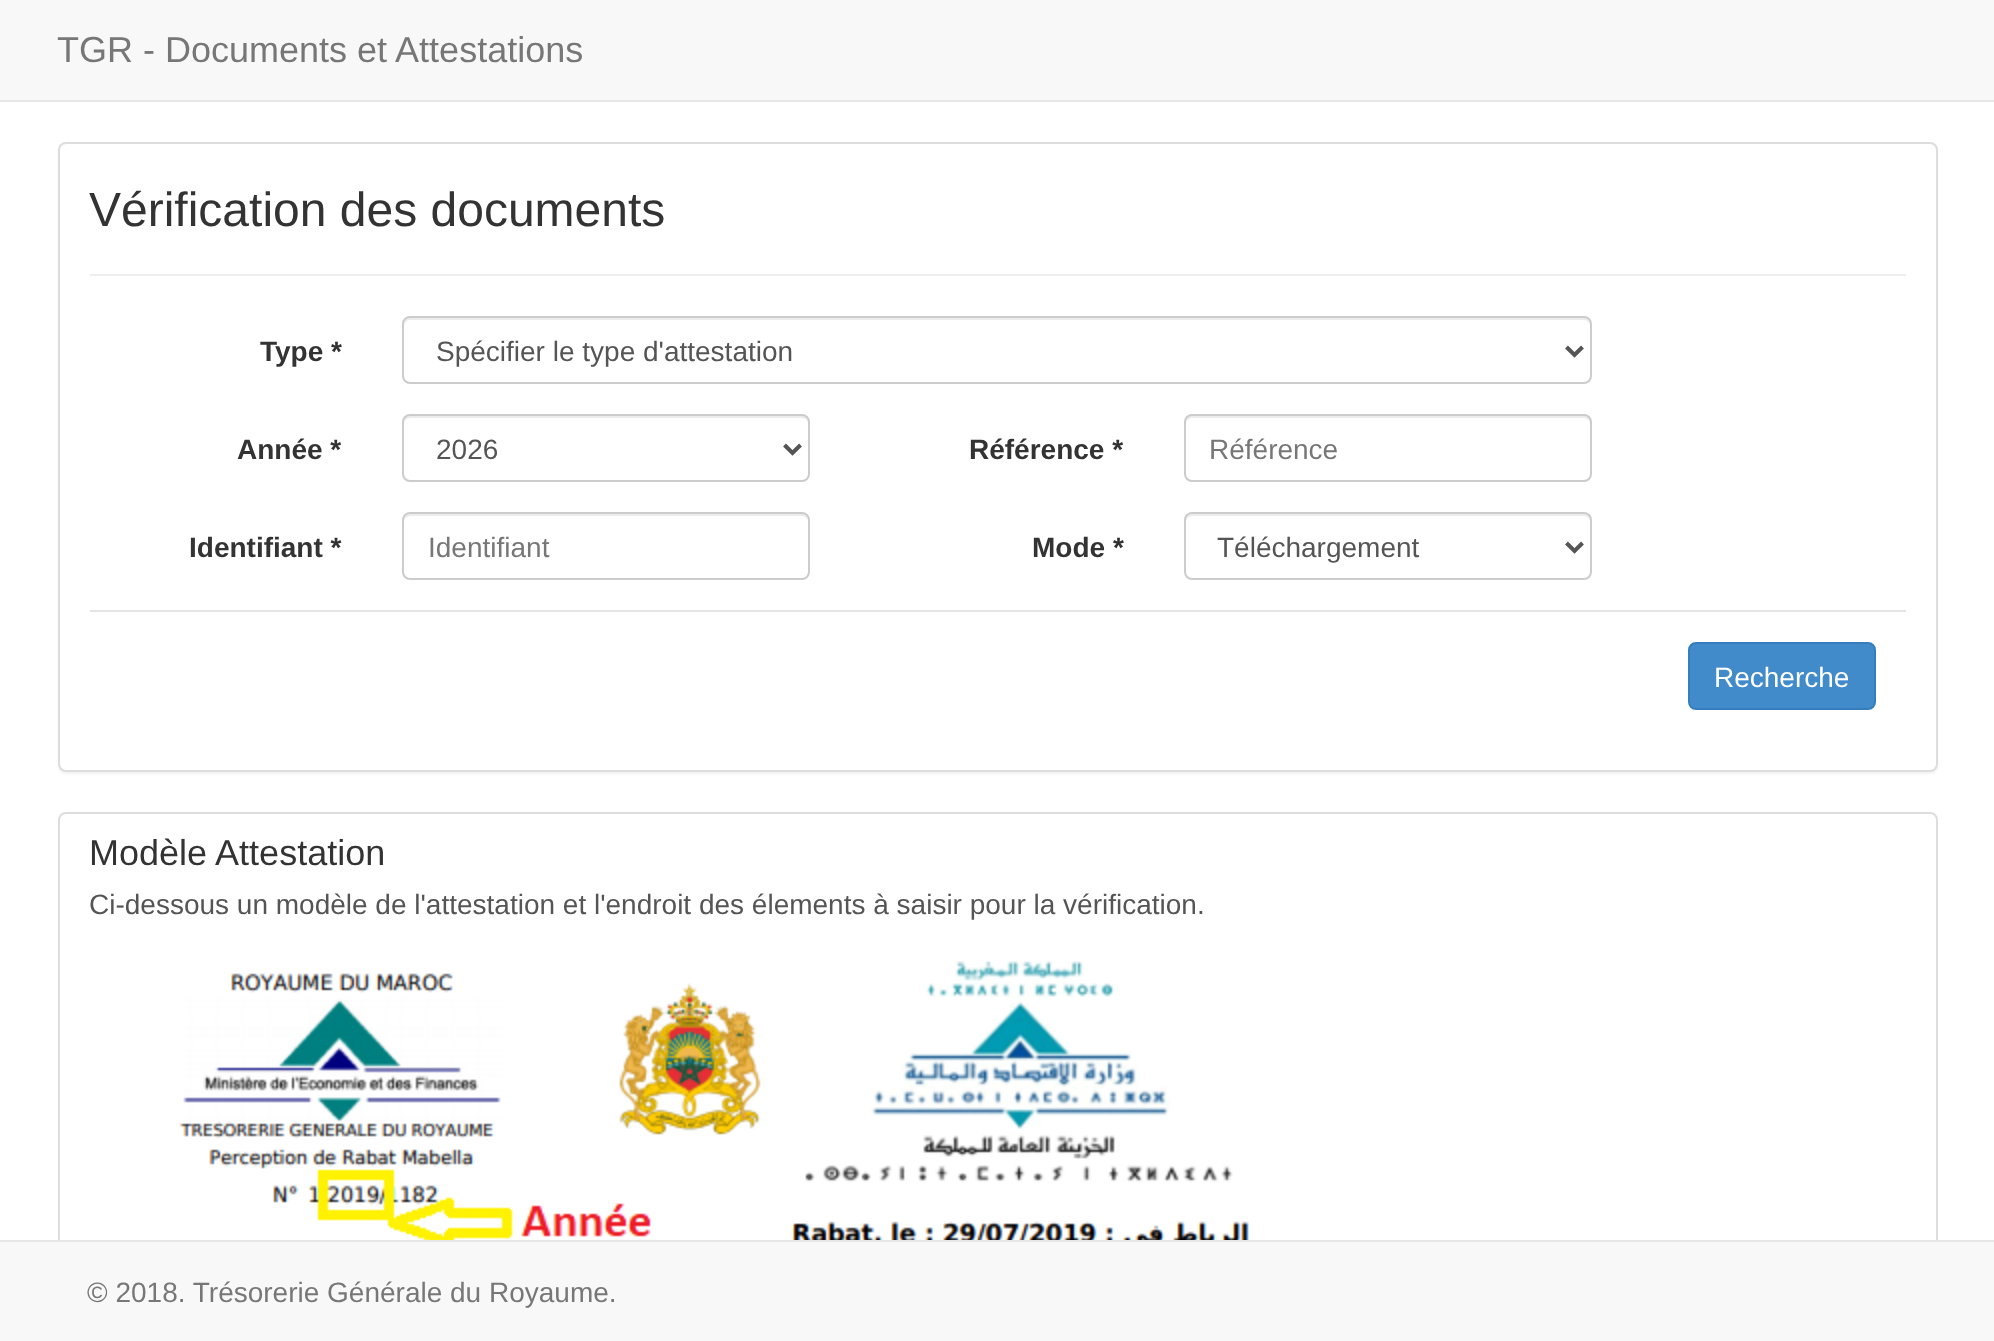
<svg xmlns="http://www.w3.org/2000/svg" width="1994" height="1341">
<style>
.a{font:36px Liberation Sans;fill:#777}
.b{font:48px Liberation Sans;fill:#333}
.c{font:bold 28px Liberation Sans;fill:#333}
.d{font:28px Liberation Sans;fill:#555}
.e{font:28px Liberation Sans;fill:#777}
.f{font:28px Liberation Sans;fill:#fff}
.g{font:36px Liberation Sans;fill:#333}
</style>
<rect width="100%" height="100%" fill="#fff"/>
<path fill="#f8f8f8" d="M0 0h1994v100H0z"/>
<path fill="#e7e7e7" d="M0 100h1994v2H0z"/>
<rect fill="#0000000d" filter="blur(1px)" x="58" y="144" width="1880" height="630" rx="8"/>
<rect fill="#fff" stroke="#ddd" stroke-width="2" x="59" y="143" width="1878" height="628" rx="7"/>
<path fill="#eee" d="M90 274h1816v2H90z"/>
<path fill="#ececec" d="M410 320h1174c3 0 6 3 6 6v-2c0-3-3-6-6-6h-1174c-3 0-6 3-6 6v2c0-3 3-6 6-6z"/>
<rect fill="none" stroke="#ccc" stroke-width="2" x="403" y="317" width="1188" height="66" rx="7"/>
<path fill="none" stroke="#555" stroke-width="4" d="M1566.5 347l8 8l8-8"/>
<path fill="#ececec" d="M410 418h392c3 0 6 3 6 6c0-4-1-8-6-8h-392c-5 0-6 4-6 8c0-3 3-6 6-6z"/>
<rect fill="none" stroke="#ccc" stroke-width="2" x="403" y="415" width="406" height="66" rx="7"/>
<path fill="none" stroke="#555" stroke-width="4" d="M784.5 445l8 8l8-8"/>
<path fill="#ececec" d="M1192 418h392c3 0 6 3 6 6c0-4-1-8-6-8h-392c-5 0-6 4-6 8c0-3 3-6 6-6z"/>
<rect fill="none" stroke="#ccc" stroke-width="2" x="1185" y="415" width="406" height="66" rx="7"/>
<path fill="#ececec" d="M410 516h392c3 0 6 3 6 6c0-4-1-8-6-8h-392c-5 0-6 4-6 8c0-3 3-6 6-6z"/>
<rect fill="none" stroke="#ccc" stroke-width="2" x="403" y="513" width="406" height="66" rx="7"/>
<path fill="#ececec" d="M1192 516h392c3 0 6 3 6 6c0-4-1-8-6-8h-392c-5 0-6 4-6 8c0-3 3-6 6-6z"/>
<rect fill="none" stroke="#ccc" stroke-width="2" x="1185" y="513" width="406" height="66" rx="7"/>
<path fill="none" stroke="#555" stroke-width="4" d="M1566.5 543l8 8l8-8"/>
<path fill="#e5e5e5" d="M90 610h1816v2H90z"/>
<rect fill="#428bca" stroke="#357ebd" stroke-width="2" x="1689" y="643" width="186" height="66" rx="7"/>
<rect fill="none" stroke="#ddd" stroke-width="2" x="59" y="813" width="1878" height="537" rx="7"/>
<image href="1.png" x="129" y="960" width="1126" height="280"/>
<path fill="#f8f8f8" d="M0 1242h1994v99H0z"/>
<path fill="#e7e7e7" d="M0 1240h1994v2H0z"/>
<text class="a" x="57" y="62">TGR - Documents et Attestations</text>
<text class="b" x="89" y="226">Vérification des documents</text>
<text class="c" x="260" y="361">Type *</text>
<text class="d" x="436" y="361">Spécifier le type d'attestation</text>
<text class="c" x="237" y="459">Année *</text>
<text class="d" x="436" y="459">2026</text>
<text class="c" x="969" y="459">Référence *</text>
<text class="e" x="1209" y="459">Référence</text>
<text class="c" x="189" y="557">Identifiant *</text>
<text class="e" x="428" y="557">Identifiant</text>
<text class="c" x="1032" y="557">Mode *</text>
<text class="d" x="1217" y="557">Téléchargement</text>
<text class="f" x="1714" y="687">Recherche</text>
<text class="g" x="89" y="865">Modèle Attestation</text>
<text class="d" x="89" y="914">Ci-dessous un modèle de l'attestation et l'endroit des élements à saisir pour la vérification.</text>
<text class="e" x="87" y="1302">© 2018. Trésorerie Générale du Royaume.</text>
</svg>
